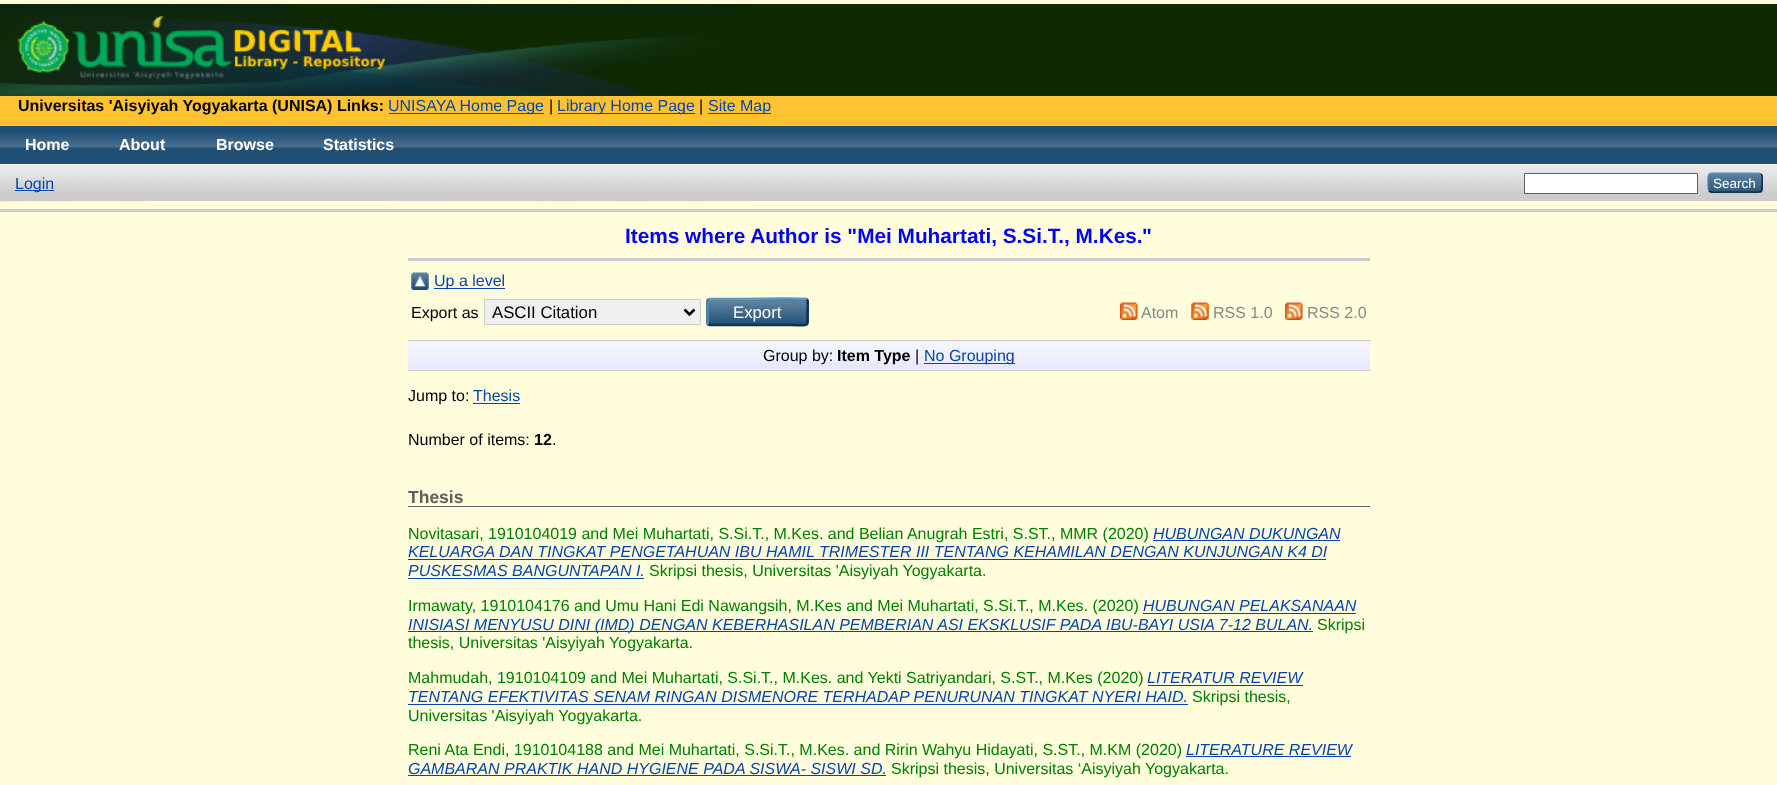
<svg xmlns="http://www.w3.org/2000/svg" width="1777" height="785">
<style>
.a{font:bold 16px Liberation Sans;fill:#000}
.b{font:16px Liberation Sans;fill:#0645ad}
.c{font:16px Liberation Sans;fill:#000}
.d{font:bold 16px Liberation Sans;fill:#fff}
.e{font:13.5px Liberation Sans;fill:#fff}
.f{font:bold 20.8px Liberation Sans;fill:#00f}
.g{font:16.75px Liberation Sans;fill:#000}
.h{font:16.75px Liberation Sans;fill:#fff}
.i{font:16px Liberation Sans;fill:#888}
.j{font:bold 17.5px Liberation Sans;fill:#606060}
.k{font:16px Liberation Sans;fill:#008000}
.l{font:italic 16px Liberation Sans;fill:#0645ad}
</style>
<rect width="100%" height="100%" fill="#fffddc"/>
<path fill="#0f2903" d="M0 4h1777v92H0z"/>
<image href="1.png" x="0" y="3" width="752" height="199"/>
<image href="2.png" x="17" y="16" width="368" height="64"/>
<path fill="#ffc332" d="M0 96h1777v30H0z"/>
<path fill="#0645ad" d="M389 113h155v1H389z"/>
<path fill="#0645ad" d="M558 113h137v1H558z"/>
<path fill="#0645ad" d="M708 113h63v1H708z"/>
<path fill="#204f76" d="M0 126h1777v38H0z"/>
<image href="3.png" x="0" y="133" width="1777" height="15"/>
<path fill="#fff" d="M0 164h1777v1H0z"/>
<path fill="#ccc" d="M0 165h1777v36H0z"/>
<image href="4.png" x="0" y="165" width="1777" height="27"/>
<path fill="#0645ad" d="M15 190h39v1H15z"/>
<path fill="#fff" stroke="#606060" d="M1524.5 173.5h173v20H1524.5z"/>
<rect fill="#1f4f76" x="1708" y="173" width="55" height="20" rx="4"/>
<image href="5.png" x="1708" y="173" width="55" height="19"/>
<path fill="none" stroke="#5b97c7" stroke-width="1.2" d="M1709 174l2-1h48l2 1"/>
<path fill="none" stroke="#0d2131" stroke-width="1.2" d="M1761 174c2 2 1 6 1 8.5c0 11 .5 9.5-11 9.5h-32c-.5 0-8 1-10-1"/>
<path fill="none" stroke="#5287b3" stroke-width="1.2" d="M1709 191c-1.5-2-1-6.5-1-8.5c0-2-.5-6.5 1-8.5"/>
<path fill="#ccc" d="M0 209h1777v3H0z"/>
<path fill="#ccc" d="M408 258h962v3H408z"/>
<image href="6.png" x="411" y="272" width="18" height="18"/>
<path fill="#0645ad" d="M434 288h71v1H434z"/>
<path fill="#efefef" stroke="#ccc" d="M484.5 299.5h216v25H484.5z"/>
<path fill="none" stroke="#000" stroke-width="2.5" d="M684.5 309.5l5 5l5-5"/>
<rect fill="#1f4f76" x="706" y="298" width="103" height="28" rx="4"/>
<image href="7.png" x="706" y="300" width="103" height="24"/>
<path fill="none" stroke="#5b97c7" stroke-width="2.5" d="M708 299.5l2-.5h16c8 0 78.5-1 80.5 0l.5 .5"/>
<path fill="none" stroke="#13324a" stroke-width="2.5" d="M807 299.5c1.5 2 .5 10 .5 12.5c0 17 2 13-18.5 13h-79l-2-.5"/>
<path fill="none" stroke="#5287b3" stroke-width="2.5" d="M708 324.5c0-.5-.5-1.5-.5-2v-21.5c0-.5 .5-1 .5-1.5"/>
<image href="8.png" x="1120" y="302" width="18" height="18"/>
<image href="9.png" x="1191" y="302" width="18" height="18"/>
<image href="10.png" x="1285" y="302" width="18" height="18"/>
<path fill="#e8e8ff" d="M408 341h962v29H408z"/>
<image href="11.png" x="407" y="341" width="963" height="22"/>
<path fill="#ccc" d="M408 340h962v1H408z"/>
<path fill="#ccc" d="M408 370h962v1H408z"/>
<path fill="#0645ad" d="M924 363h91v1H924z"/>
<path fill="#0645ad" d="M473 403h47v1H473z"/>
<path fill="#606060" d="M408 506h962v1H408z"/>
<path fill="#0645ad" d="M1153 540h187v1H1153z"/>
<path fill="#0645ad" d="M408 559h918v1H408z"/>
<path fill="#0645ad" d="M408 578h236v1H408z"/>
<path fill="#0645ad" d="M1143 613h213v1H1143z"/>
<path fill="#0645ad" d="M408 631h905v1H408z"/>
<path fill="#0645ad" d="M1148 685h155v1H1148z"/>
<path fill="#0645ad" d="M408 704h780v1H408z"/>
<path fill="#0645ad" d="M1186 756h165v1H1186z"/>
<path fill="#0645ad" d="M408 775h478v1H408z"/>
<text class="a" x="18" y="111">Universitas 'Aisyiyah Yogyakarta (UNISA) Links:</text>
<text class="b" x="388" y="111">UNISAYA Home Page</text>
<text class="c" x="549" y="111">|</text>
<text class="b" x="557" y="111">Library Home Page</text>
<text class="c" x="699" y="111">|</text>
<text class="b" x="708" y="111">Site Map</text>
<text class="d" x="25" y="150">Home</text>
<text class="d" x="119" y="150">About</text>
<text class="d" x="216" y="150">Browse</text>
<text class="d" x="323" y="150">Statistics</text>
<text class="b" x="15" y="189">Login</text>
<text class="e" x="1713" y="188">Search</text>
<text class="f" x="625" y="243">Items where Author is "Mei Muhartati, S.Si.T., M.Kes.</text>
<text class="f" x="1142" y="243">"</text>
<text class="b" x="434" y="286">Up a level</text>
<text class="c" x="411" y="318">Export as</text>
<text class="g" x="492" y="318">ASCII Citation</text>
<text class="h" x="733" y="318">Export</text>
<text class="i" x="1141" y="318">Atom</text>
<text class="i" x="1213" y="318">RSS 1.0</text>
<text class="i" x="1307" y="318">RSS 2.0</text>
<text class="c" x="763" y="361">Group by:</text>
<text class="a" x="837" y="361">Item Type</text>
<text class="c" x="915" y="361">|</text>
<text class="b" x="924" y="361">No Grouping</text>
<text class="c" x="408" y="401">Jump to:</text>
<text class="b" x="473" y="401">Thesis</text>
<text class="c" x="408" y="445">Number of items:</text>
<text class="a" x="534" y="445">12</text>
<text class="c" x="552" y="445">.</text>
<text class="j" x="408" y="503">Thesis</text>
<text class="k" x="408" y="539">Novitasari, 1910104019 and Mei Muhartati, S.Si.T., M.Kes. and Belian Anugrah Estri, S.ST., MMR (2020)</text>
<text class="l" x="1153" y="539">HUBUNGAN DUKUNGAN</text>
<text class="l" x="408" y="557">KELUARGA DAN TINGKAT PENGETAHUAN IBU HAMIL TRIMESTER III TENTANG KEHAMILAN DENGAN KUNJUNGAN K4 DI</text>
<text class="l" x="408" y="576">PUSKESMAS BANGUNTAPAN I.</text>
<text class="k" x="649" y="576">Skripsi thesis, Universitas 'Aisyiyah Yogyakarta.</text>
<text class="k" x="408" y="611">Irmawaty, 1910104176 and Umu Hani Edi Nawangsih, M.Kes and Mei Muhartati, S.Si.T., M.Kes. (2020)</text>
<text class="l" x="1143" y="611">HUBUNGAN PELAKSANAAN</text>
<text class="l" x="408" y="630">INISIASI MENYUSU DINI (IMD) DENGAN KEBERHASILAN PEMBERIAN ASI EKSKLUSIF PADA IBU-BAYI USIA 7-12 BULAN.</text>
<text class="k" x="1317" y="630">Skripsi</text>
<text class="k" x="408" y="648">thesis, Universitas 'Aisyiyah Yogyakarta.</text>
<text class="k" x="408" y="683">Mahmudah, 1910104109 and Mei Muhartati, S.Si.T., M.Kes. and Yekti Satriyandari, S.ST., M.Kes (2020)</text>
<text class="l" x="1147" y="683">LITERATUR REVIEW</text>
<text class="l" x="408" y="702">TENTANG EFEKTIVITAS SENAM RINGAN DISMENORE TERHADAP PENURUNAN TINGKAT NYERI HAID.</text>
<text class="k" x="1192" y="702">Skripsi thesis,</text>
<text class="k" x="408" y="721">Universitas 'Aisyiyah Yogyakarta.</text>
<text class="k" x="408" y="755">Reni Ata Endi, 1910104188 and Mei Muhartati, S.Si.T., M.Kes. and Ririn Wahyu Hidayati, S.ST., M.KM (2020)</text>
<text class="l" x="1186" y="755">LITERATURE REVIEW</text>
<text class="l" x="408" y="774">GAMBARAN PRAKTIK HAND HYGIENE PADA SISWA- SISWI SD.</text>
<text class="k" x="891" y="774">Skripsi thesis, Universitas ‘Aisyiyah Yogyakarta.</text>
</svg>
